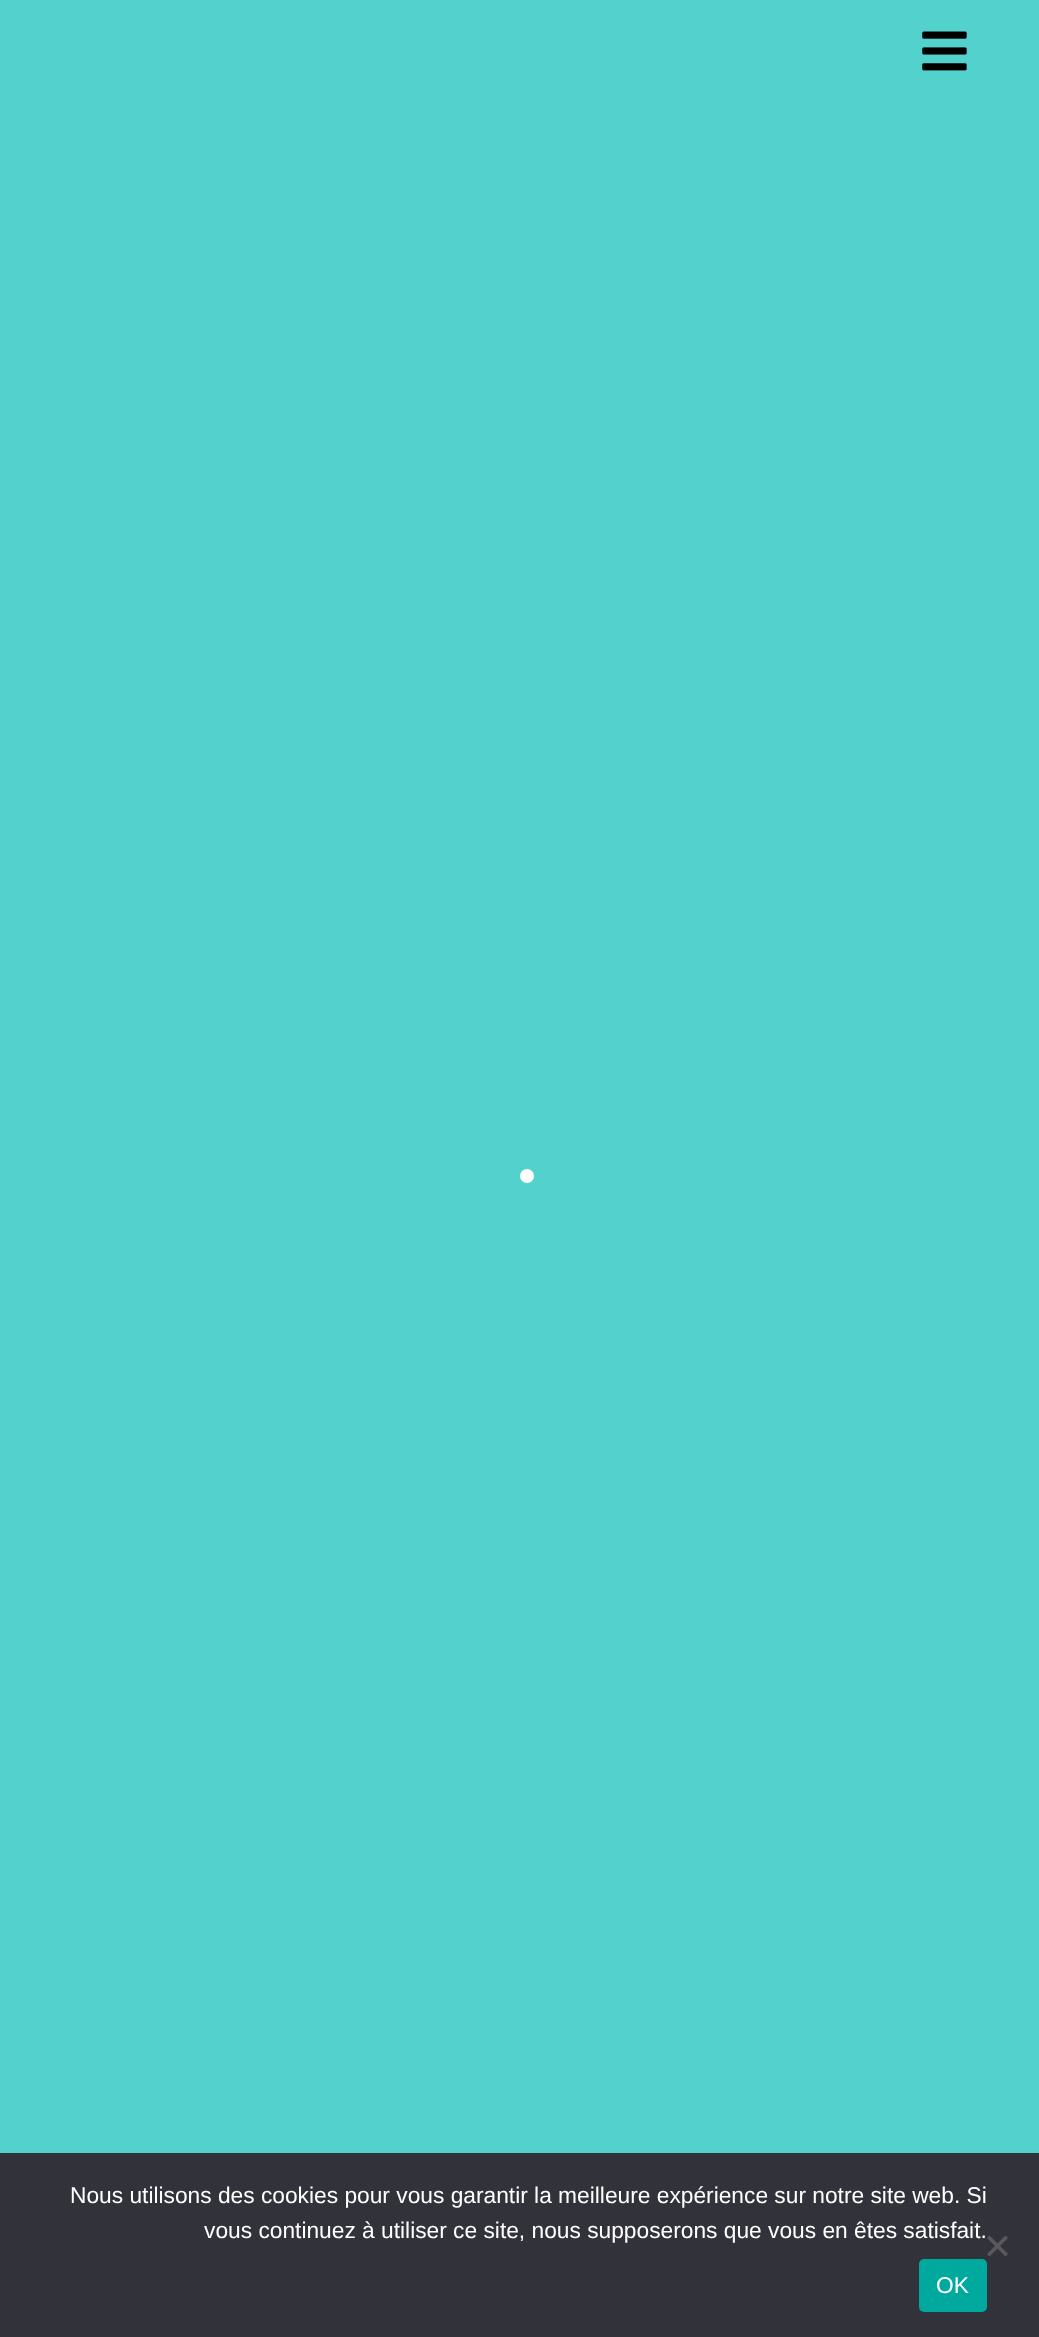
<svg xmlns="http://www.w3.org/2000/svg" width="1039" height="2337">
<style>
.a{font:22.75px Liberation Sans;fill:#fff}
</style>
<rect width="100%" height="100%" fill="#52d1cd"/>
<image href="1.png" x="922" y="31" width="45" height="40"/>
<circle fill="#fff" cx="527" cy="1176" r="7"/>
<path fill="#32323a" d="M0 2153h1039v184H0z"/>
<path fill="#59595d" d="M1005.5 2235.5l2.5 2.5l-18.5 18.5l-2.5-2.5z"/>
<path fill="#59595d" d="M987 2238l2.5-2.5l18.5 18.5l-2.5 2.5z"/>
<rect fill="#00a99d" x="919" y="2259" width="68" height="53" rx="5"/>
<text class="a" x="70" y="2203">Nous utilisons des cookies pour vous garantir la meilleure expérience sur notre site web. Si</text>
<text class="a" x="204" y="2238">vous continuez à utiliser ce site, nous supposerons que vous en êtes satisfait.</text>
<text class="a" x="936" y="2293">OK</text>
</svg>
